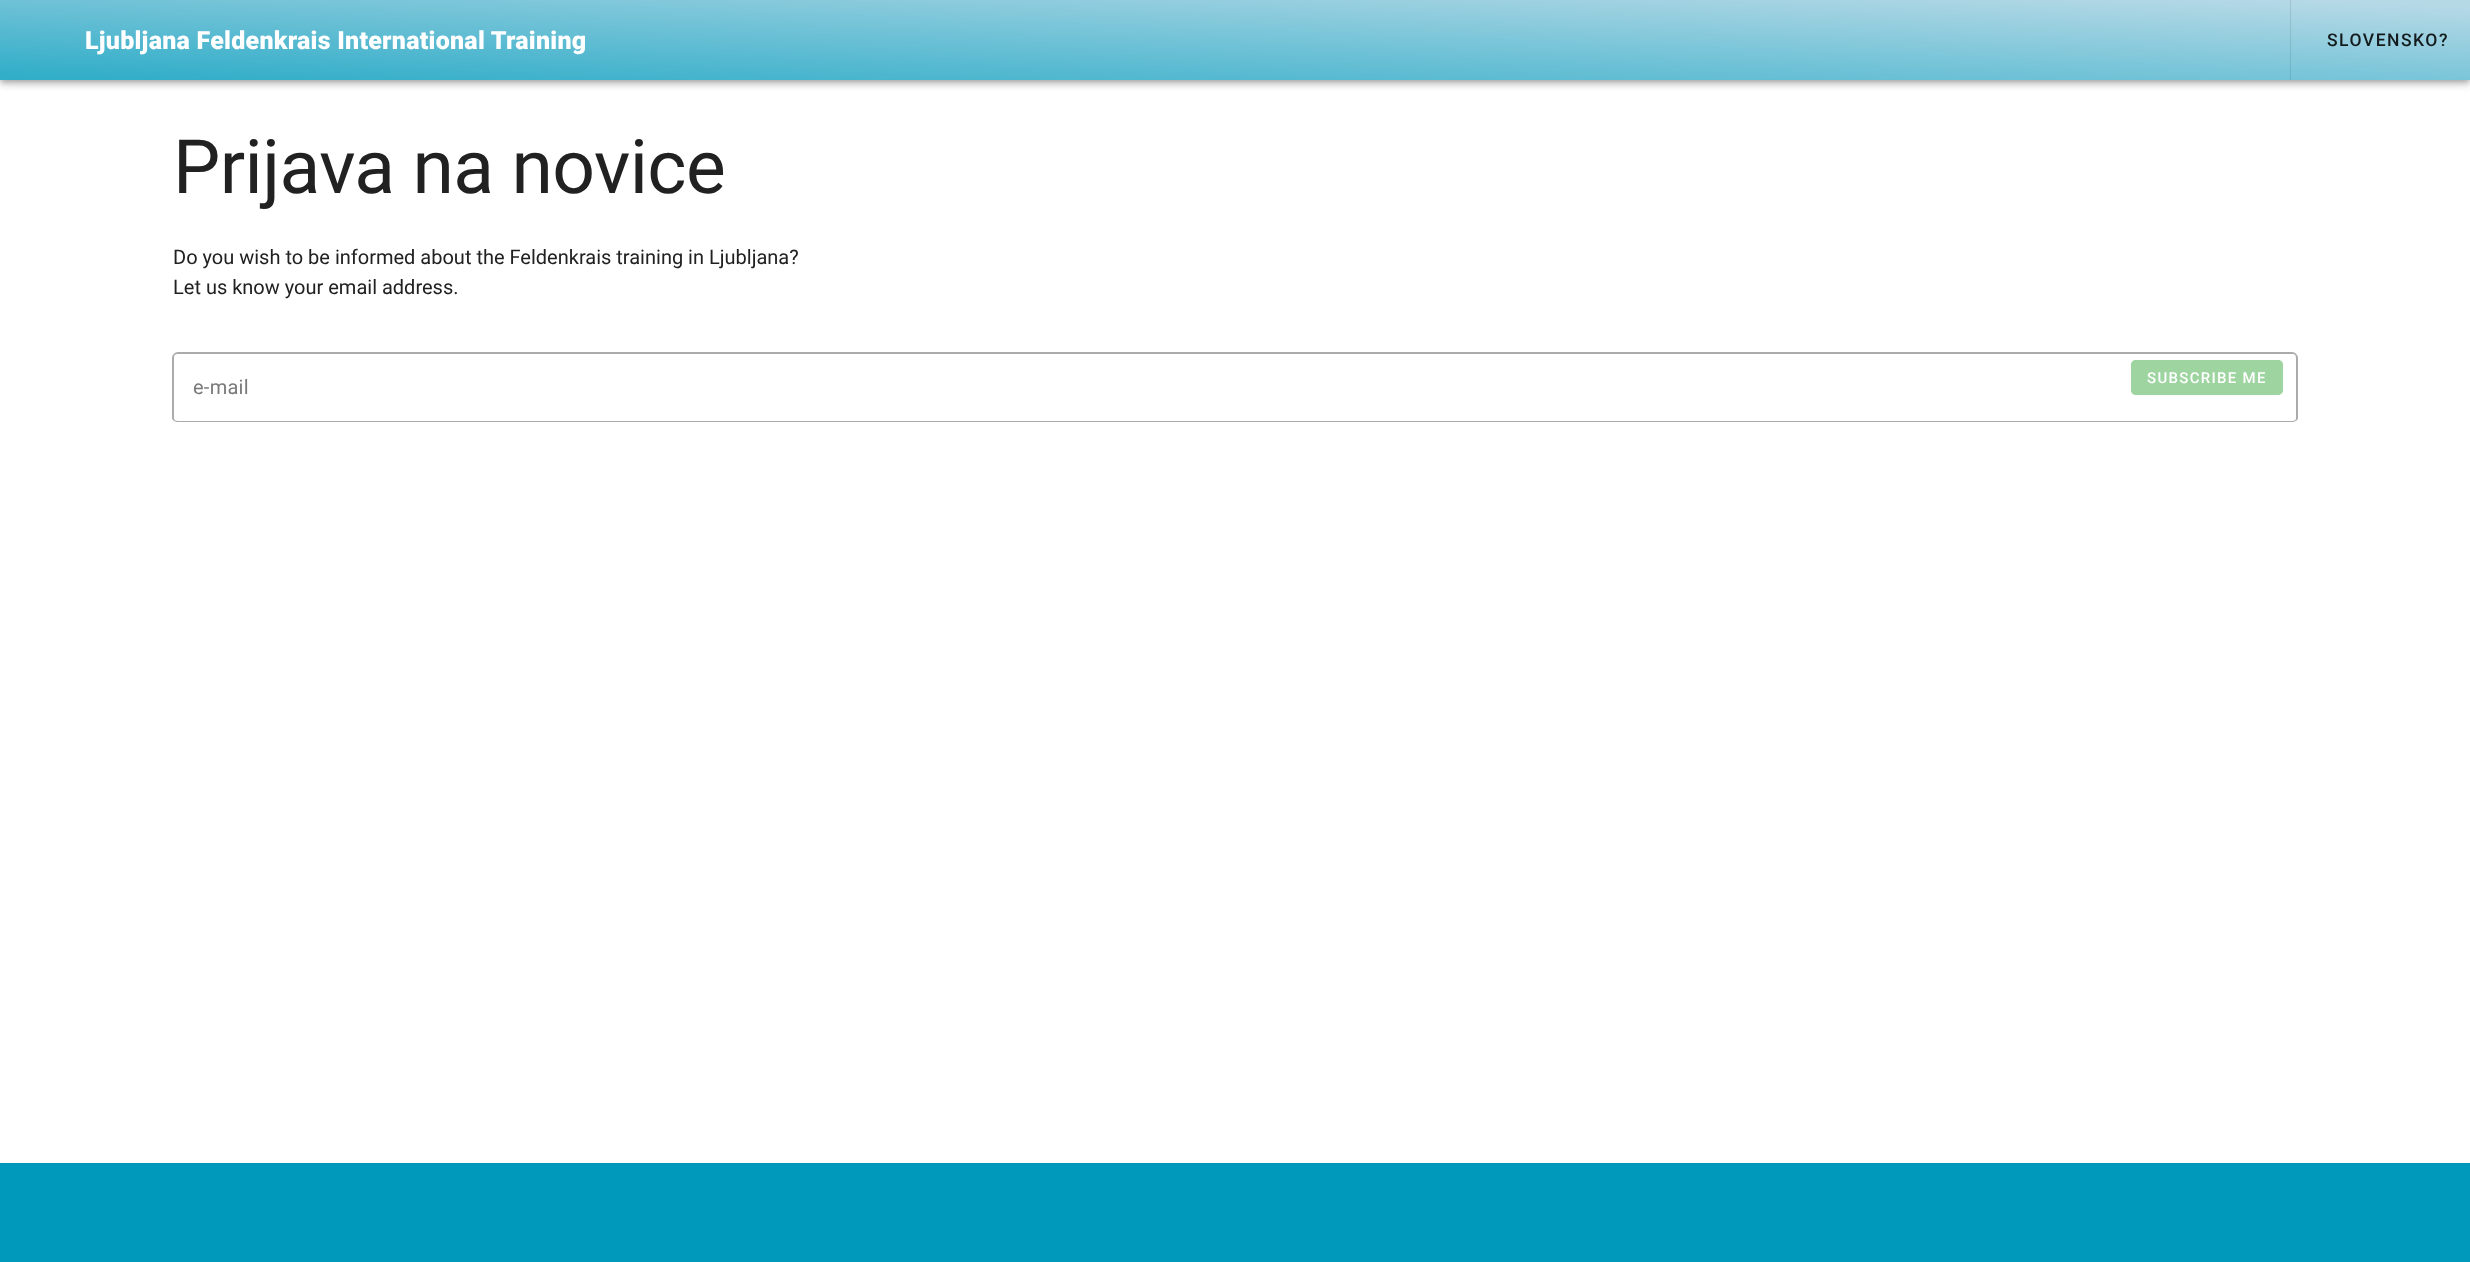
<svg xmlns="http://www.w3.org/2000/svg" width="2470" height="1262">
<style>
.a{font:900 25px Roboto;letter-spacing:0.25px;fill:#fff}
.b{font:500 17.5px Roboto;letter-spacing:1.5px;fill:#141b1d}
.c{font:75px Roboto;letter-spacing:-0.6px;fill:#212121}
.d{font:20px Roboto;fill:#212121}
.e{font:500 15px Roboto;letter-spacing:1.3px;fill:#fff}
.f{font:20px Roboto;letter-spacing:0.25px;fill:#7a7a7a}
</style>
<defs>
<linearGradient id="g1" gradientUnits="userSpaceOnUse" x1="1232" y1="120" x2="1238" y2="-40"><stop offset="0" stop-color="#33aec9"/><stop offset="1" stop-color="#b6d9e6"/></linearGradient>
<linearGradient id="g2" gradientUnits="userSpaceOnUse" x1="1232" y1="120" x2="1238" y2="-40"><stop offset="0" stop-color="#2e9db5"/><stop offset="1" stop-color="#a4c3cf"/></linearGradient>
</defs>
<rect width="100%" height="100%" fill="#fff"/>
<path fill="#0000001f" filter="blur(6px)" d="M0 1h2470v80H0z"/>
<path fill="#00000024" filter="blur(3px)" d="M0 5h2470v80H0z"/>
<path fill="#00000033" filter="blur(2.5px)" d="M1 4h2468v77H1z"/>
<path fill="url(#g1)" d="M0 0h2470v80H0z"/>
<path fill="url(#g2)" d="M2290 0h1v80H2290z"/>
<path fill="#ababab" fill-rule="evenodd" d="M178 352h10v70h-10c-3 0-6-2-6-4v-60c0-3 3-6 6-6zm0 2h10v67h-10c-3 0-4-1-4-3v-60c0-3 1-4 4-4z"/>
<rect fill="#4caf50" x="2131" y="360" width="152" height="35" rx="5"/>
<path fill="#09b" d="M0 1163h2470v99H0z"/>
<text class="a" x="85" y="49">Ljubljana Feldenkrais International Training</text>
<text class="b" x="2327" y="46">SLOVENSKO?</text>
<text class="c" x="173" y="193">Prijava na novice</text>
<text class="d" x="173" y="264">Do you wish to be informed about the Feldenkrais training in Ljubljana?</text>
<text class="d" x="173" y="294">Let us know your email address.</text>
<text class="e" x="2147" y="383">SUBSCRIBE ME</text>
<rect fill="#ffffff75" x="2131" y="360" width="152" height="35" rx="5"/>
<path fill="#ababab" fill-rule="evenodd" d="M188 352h2104c3 0 6 3 6 6v60c0 2-3 4-6 4h-2104zm0 2h2104c3 0 4 1 4 4v60c0 2-1 3-4 3h-2104z"/>
<text class="f" x="193" y="394">e-mail</text>
</svg>
